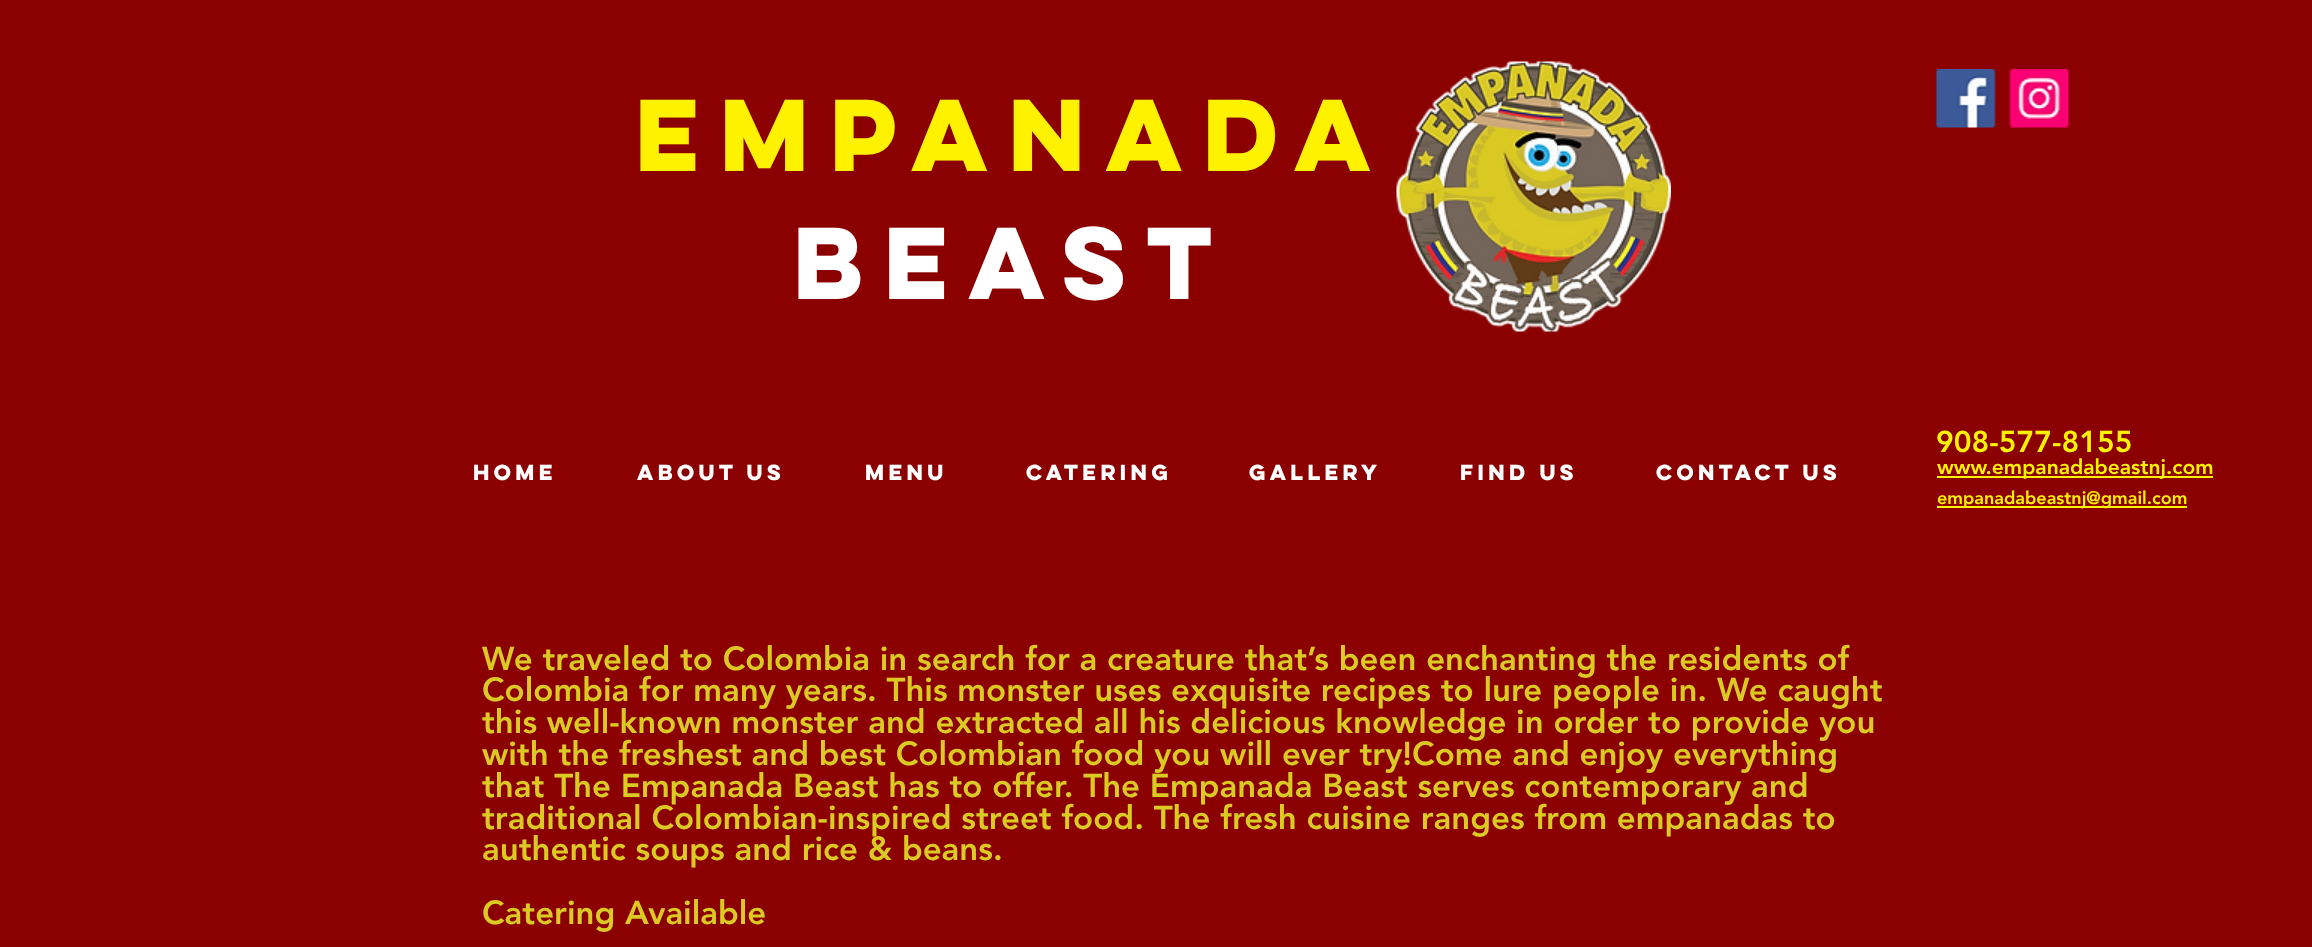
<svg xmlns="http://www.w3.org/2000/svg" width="2312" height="947">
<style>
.a{font:bold 91.5px 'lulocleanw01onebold';fill:#fff200}
.b{font:bold 91.5px 'lulocleanw01onebold';fill:#fff}
.c{font:900 30px 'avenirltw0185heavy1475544';fill:#fff200}
.d{font:bold 19.5px 'lulocleanw01onebold';fill:#fff}
.e{font:900 21px 'avenirltw0185heavy1475544';fill:#fff200}
.f{font:900 18px 'avenirltw0185heavy1475544';fill:#fff200}
.g{font:900 33px 'avenirltw0185heavy1475544';fill:#dbca24}
</style>
<rect width="100%" height="100%" fill="#8b0000"/>
<image href="1.png" x="1396" y="61" width="275" height="271"/>
<image href="2.png" x="1936" y="69" width="60" height="59"/>
<image href="3.png" x="2009" y="69" width="60" height="59"/>
<path fill="#fff200" d="M1937 476h276v2H1937z"/>
<path fill="#fff200" d="M1937 506h250v2H1937z"/>
<text class="a" x="635" y="171">Empanada</text>
<text class="b" x="793" y="299">Beast</text>
<text class="c" x="1936" y="452">908-577-8155</text>
<text class="d" x="473" y="480">Home</text>
<text class="d" x="637" y="480">About Us</text>
<text class="d" x="865" y="480">Menu</text>
<text class="d" x="1026" y="480">Catering</text>
<text class="d" x="1249" y="480">Gallery</text>
<text class="d" x="1460" y="480">Find Us</text>
<text class="d" x="1656" y="480">Contact Us</text>
<text class="e" x="1937" y="474">www.empanadabeastnj.com</text>
<text class="f" x="1937" y="504">empanadabeastnj@gmail.com</text>
<text class="g" x="482" y="670">We traveled to Colombia in search for a creature that’s been enchanting the residents of</text>
<text class="g" x="482" y="701">Colombia for many years. This monster uses exquisite recipes to lure people in. We caught</text>
<text class="g" x="482" y="733">this well-known monster and extracted all his delicious knowledge in order to provide you</text>
<text class="g" x="482" y="765">with the freshest and best Colombian food you will ever try!Come and enjoy everything</text>
<text class="g" x="482" y="797">that The Empanada Beast has to offer. The Empanada Beast serves contemporary and</text>
<text class="g" x="482" y="829">traditional Colombian-inspired street food. The fresh cuisine ranges from empanadas to</text>
<text class="g" x="482" y="860">authentic soups and rice &amp; beans.</text>
<text class="g" x="482" y="924">Catering Available</text>
</svg>
